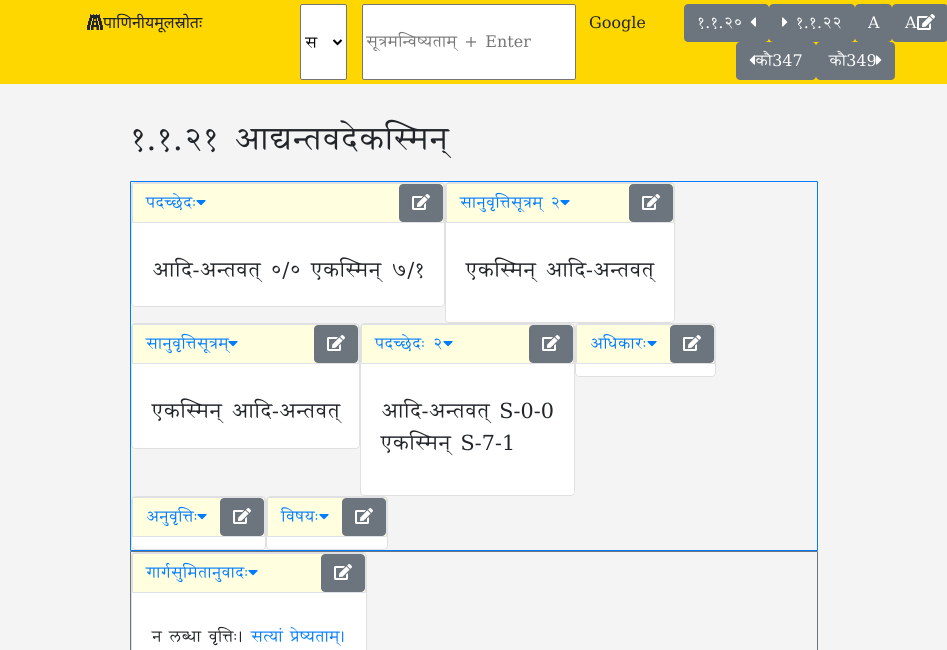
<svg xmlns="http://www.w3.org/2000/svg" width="947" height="650">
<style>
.a{font:16px Noto Sans;fill:#212529}
</style>
<rect width="100%" height="100%" fill="#f4f4f4"/>
<path fill="#ffd700" d="M0 0h947v84H0z"/>
<image href="1.png" x="87" y="14" width="16" height="16"/>
<rect fill="#fff" stroke="#767676" x="300.5" y="4.5" width="46" height="75" rx="1.5"/>
<path fill="none" stroke="#000" stroke-width="2" d="M333.5 40l4 4l4-4"/>
<image href="2.png" x="305" y="37" width="13" height="11"/>
<rect fill="#fff" stroke="#767676" x="362.5" y="4.5" width="213" height="75" rx="1.5"/>
<image href="3.png" x="366" y="31" width="165" height="20"/>
<image href="4.png" x="589" y="15" width="56" height="17"/>
<rect fill="#6c757d" stroke="#6c757d" x="684.5" y="4.5" width="84" height="37" rx="3.5"/>
<image href="5.png" x="698" y="17" width="43" height="12"/>
<image href="6.png" x="750" y="17" width="6" height="10"/>
<rect fill="#6c757d" stroke="#6c757d" x="769.5" y="4.5" width="85" height="37" rx="3.5"/>
<image href="7.png" x="782" y="17" width="6" height="10"/>
<image href="8.png" x="797" y="17" width="44" height="12"/>
<rect fill="#6c757d" stroke="#6c757d" x="855.5" y="4.5" width="36" height="37" rx="3.5"/>
<image href="9.png" x="867" y="16" width="13" height="12"/>
<rect fill="#6c757d" stroke="#6c757d" x="892.5" y="4.5" width="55" height="37" rx="3.5"/>
<image href="9.png" x="904" y="16" width="13" height="12"/>
<image href="10.png" x="917" y="14" width="18" height="16"/>
<rect fill="#6c757d" stroke="#6c757d" x="736.5" y="42.5" width="79" height="37" rx="3.5"/>
<image href="6.png" x="749" y="55" width="6" height="10"/>
<image href="11.png" x="754" y="50" width="48" height="17"/>
<rect fill="#6c757d" stroke="#6c757d" x="816.5" y="42.5" width="78" height="37" rx="3.5"/>
<image href="12.png" x="828" y="50" width="48" height="17"/>
<image href="7.png" x="876" y="55" width="6" height="10"/>
<image href="13.png" x="133" y="119" width="319" height="39"/>
<path fill="none" stroke="#007bff" d="M130.5 181.5h687v369H130.5z"/>
<rect fill="#fff" x="131" y="182" width="314" height="125" rx="4"/>
<rect fill="none" stroke="#0000001f" x="131.5" y="182.5" width="313" height="124" rx="3.5"/>
<path fill="#ffffe0" stroke="#dee2e6" d="M132.5 183.5h311v39H132.5z"/>
<image href="14.png" x="145" y="193" width="50" height="18"/>
<image href="15.png" x="196" y="200" width="10" height="6"/>
<rect fill="#6c757d" stroke="#6c757d" x="399.5" y="184.5" width="43" height="37" rx="3.5"/>
<image href="10.png" x="412" y="194" width="18" height="16"/>
<image href="16.png" x="153" y="257" width="270" height="26"/>
<rect fill="#fff" x="445" y="182" width="230" height="141" rx="4"/>
<rect fill="none" stroke="#0000001f" x="445.5" y="182.5" width="229" height="140" rx="3.5"/>
<path fill="#ffffe0" stroke="#dee2e6" d="M446.5 183.5h227v39H446.5z"/>
<image href="17.png" x="459" y="192" width="100" height="21"/>
<image href="15.png" x="560" y="200" width="10" height="6"/>
<rect fill="#6c757d" stroke="#6c757d" x="629.5" y="184.5" width="43" height="37" rx="3.5"/>
<image href="10.png" x="642" y="194" width="18" height="16"/>
<image href="18.png" x="465" y="257" width="191" height="26"/>
<rect fill="#fff" x="131" y="323" width="229" height="126" rx="4"/>
<rect fill="none" stroke="#0000001f" x="131.5" y="323.5" width="228" height="125" rx="3.5"/>
<path fill="#ffffe0" stroke="#dee2e6" d="M132.5 324.5h226v39H132.5z"/>
<image href="19.png" x="145" y="333" width="85" height="21"/>
<image href="15.png" x="228" y="341" width="10" height="6"/>
<rect fill="#6c757d" stroke="#6c757d" x="314.5" y="325.5" width="43" height="37" rx="3.5"/>
<image href="10.png" x="327" y="335" width="18" height="16"/>
<image href="18.png" x="151" y="398" width="191" height="26"/>
<rect fill="#fff" x="360" y="323" width="215" height="173" rx="4"/>
<rect fill="none" stroke="#0000001f" x="360.5" y="323.5" width="214" height="172" rx="3.5"/>
<path fill="#ffffe0" stroke="#dee2e6" d="M361.5 324.5h212v39H361.5z"/>
<image href="20.png" x="374" y="334" width="68" height="18"/>
<image href="15.png" x="443" y="341" width="10" height="6"/>
<rect fill="#6c757d" stroke="#6c757d" x="529.5" y="325.5" width="43" height="37" rx="3.5"/>
<image href="10.png" x="542" y="335" width="18" height="16"/>
<image href="21.png" x="382" y="398" width="171" height="26"/>
<image href="22.png" x="380" y="430" width="133" height="26"/>
<rect fill="#fff" x="575" y="323" width="141" height="54" rx="4"/>
<rect fill="none" stroke="#0000001f" x="575.5" y="323.5" width="140" height="53" rx="3.5"/>
<path fill="#ffffe0" stroke="#dee2e6" d="M576.5 324.5h138v39H576.5z"/>
<image href="23.png" x="591" y="334" width="55" height="15"/>
<image href="15.png" x="647" y="341" width="10" height="6"/>
<rect fill="#6c757d" stroke="#6c757d" x="670.5" y="325.5" width="43" height="37" rx="3.5"/>
<image href="10.png" x="683" y="335" width="18" height="16"/>
<rect fill="#fff" x="131" y="496" width="135" height="54" rx="4"/>
<rect fill="none" stroke="#0000001f" x="131.5" y="496.5" width="134" height="53" rx="3.5"/>
<path fill="#ffffe0" stroke="#dee2e6" d="M132.5 497.5h132v39H132.5z"/>
<image href="24.png" x="147" y="506" width="50" height="20"/>
<image href="15.png" x="197" y="514" width="10" height="6"/>
<rect fill="#6c757d" stroke="#6c757d" x="220.5" y="498.5" width="43" height="37" rx="3.5"/>
<image href="10.png" x="233" y="508" width="18" height="16"/>
<rect fill="#fff" x="266" y="496" width="122" height="54" rx="4"/>
<rect fill="none" stroke="#0000001f" x="266.5" y="496.5" width="121" height="53" rx="3.5"/>
<path fill="#ffffe0" stroke="#dee2e6" d="M267.5 497.5h119v39H267.5z"/>
<image href="25.png" x="280" y="507" width="38" height="15"/>
<image href="15.png" x="319" y="514" width="10" height="6"/>
<rect fill="#6c757d" stroke="#6c757d" x="342.5" y="498.5" width="43" height="37" rx="3.5"/>
<image href="10.png" x="355" y="508" width="18" height="16"/>
<path fill="none" stroke="#6c757d" d="M130.5 551.5h687v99H130.5z"/>
<rect fill="#fff" x="131" y="552" width="236" height="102" rx="4"/>
<rect fill="none" stroke="#0000001f" x="131.5" y="552.5" width="235" height="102" rx="3.5"/>
<path fill="#ffffe0" stroke="#dee2e6" d="M132.5 553.5h233v39H132.5z"/>
<image href="26.png" x="145" y="562" width="102" height="21"/>
<image href="15.png" x="248" y="570" width="10" height="6"/>
<rect fill="#6c757d" stroke="#6c757d" x="321.5" y="554.5" width="43" height="37" rx="3.5"/>
<image href="10.png" x="334" y="564" width="18" height="16"/>
<image href="27.png" x="151" y="626" width="90" height="20"/>
<image href="28.png" x="250" y="627" width="94" height="19"/>
<text class="a" x="103" y="28">पाणिनीयमूलस्रोतः</text>
</svg>
